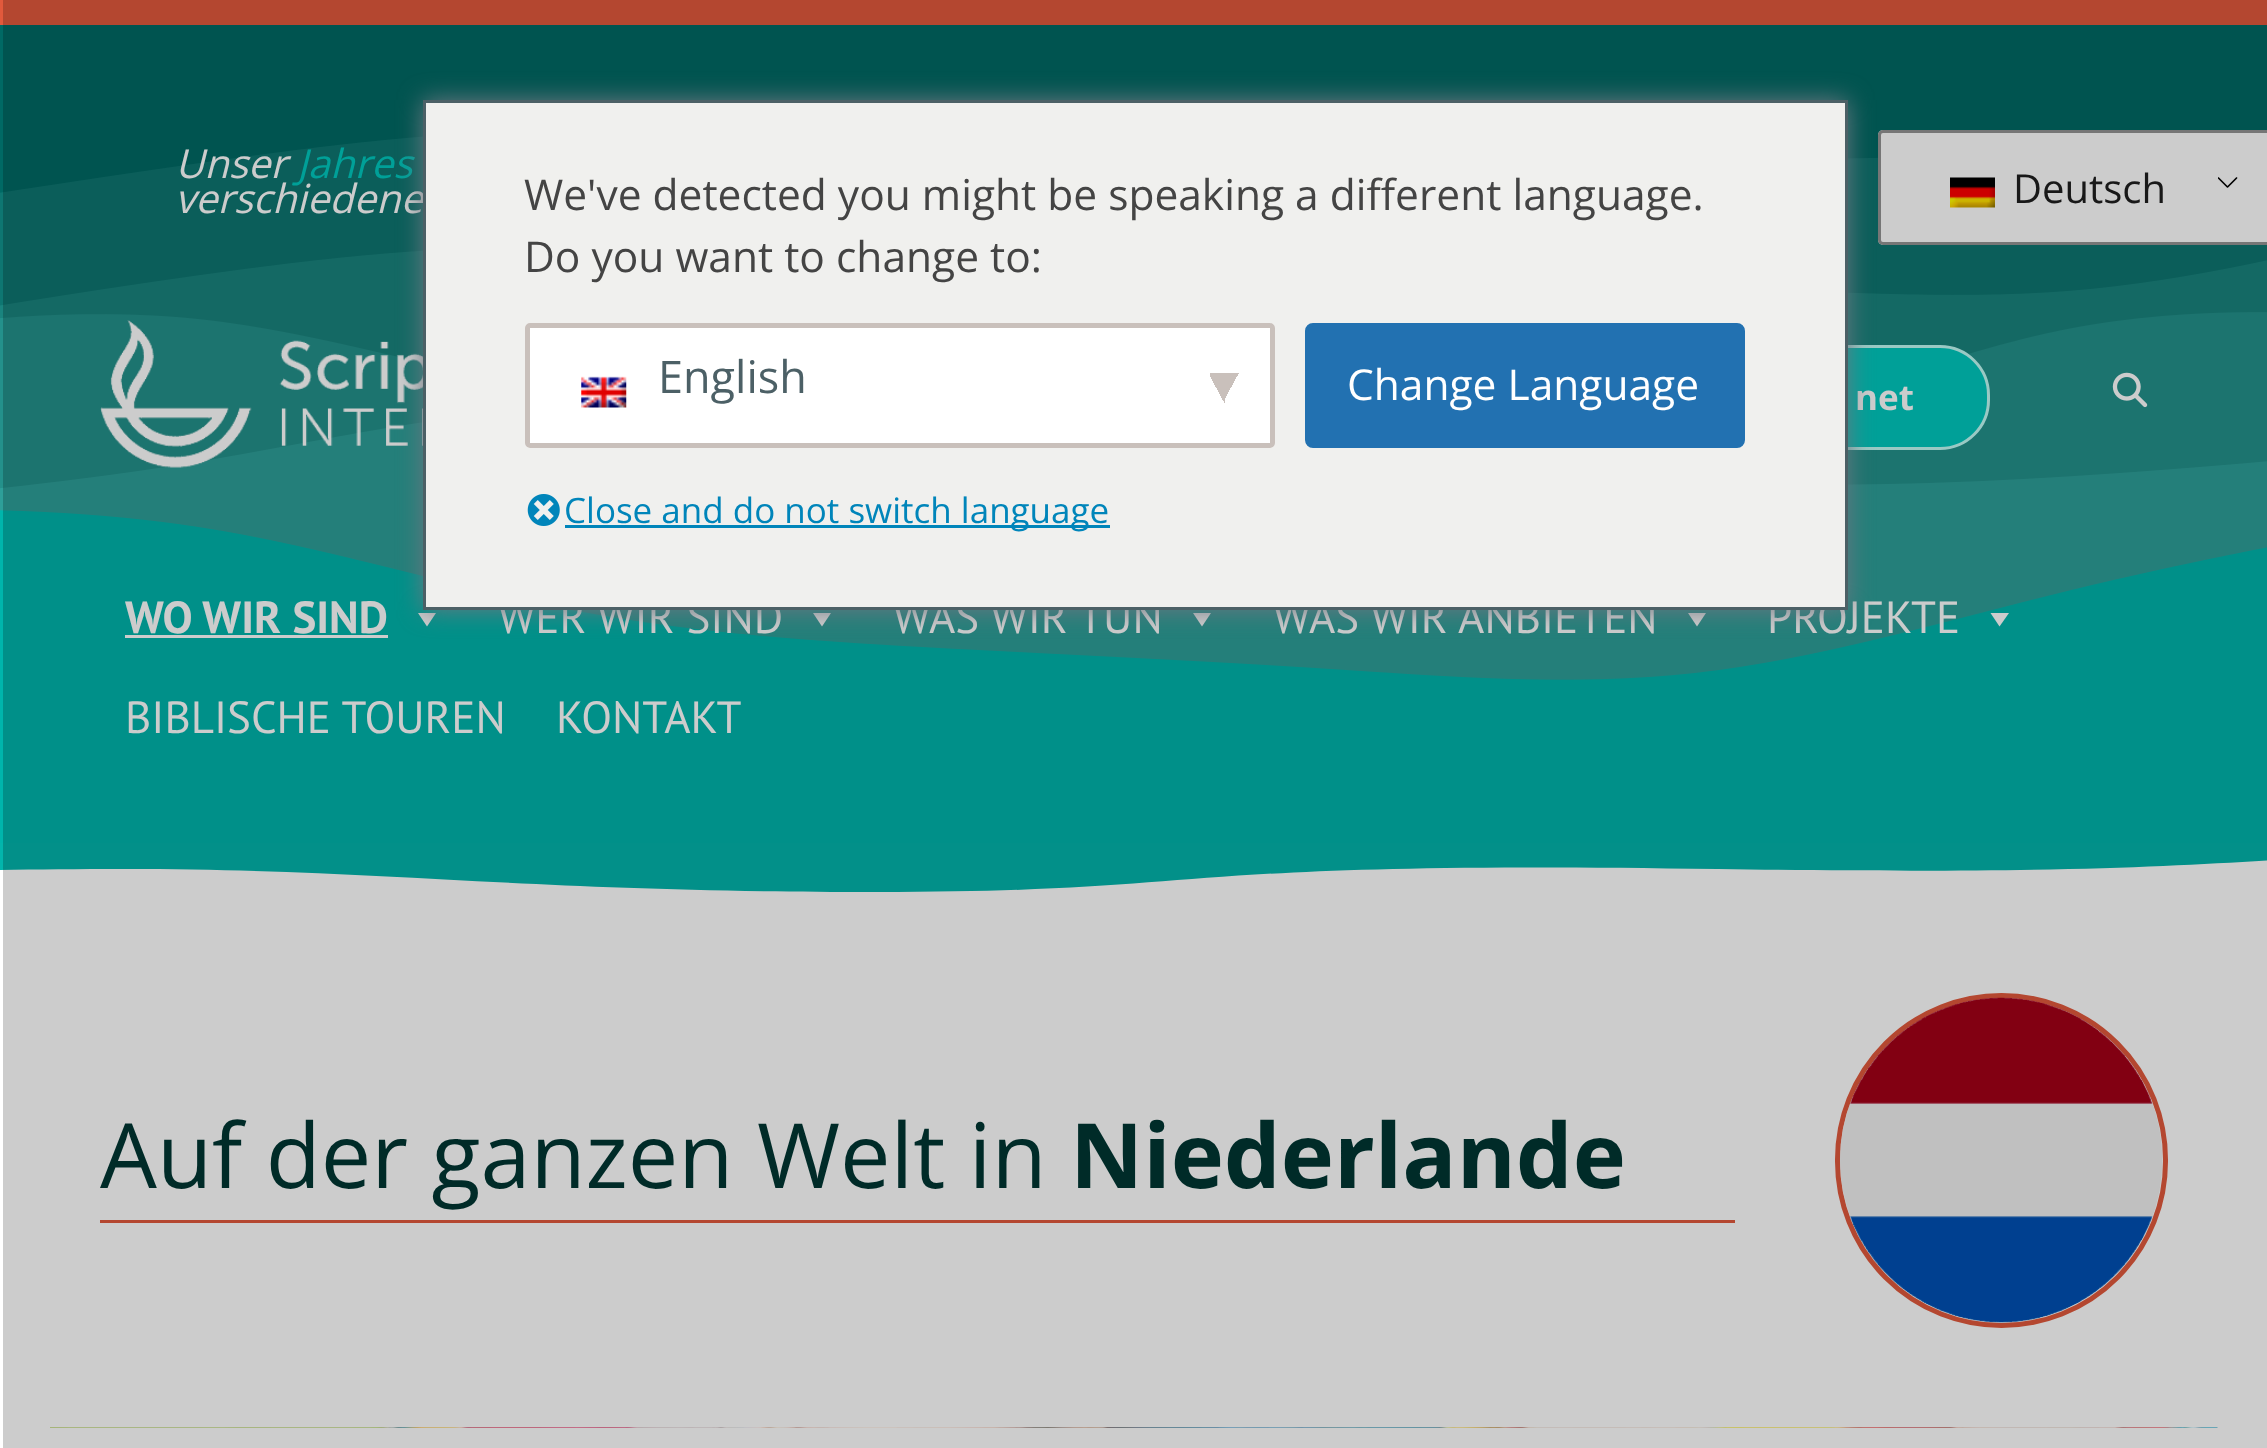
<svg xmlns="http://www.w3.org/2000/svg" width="2267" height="1448">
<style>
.a{font:italic 40px Open Sans;fill:#fff}
.b{font:italic 40px Open Sans;fill:#00c9bf}
.c{font:40px Open Sans;fill:#1e1e1e}
.d{font:bold 35px Open Sans;fill:#fff}
.e{font:bold 45px PT Sans;fill:#fff}
.f{font:45px PT Sans;fill:#fff}
.g{font:90px Open Sans;fill:#003633}
.h{font:bold 90px Open Sans;fill:#003633}
.i{font:42.5px Open Sans;fill:#444}
.j{font:45px Open Sans;fill:#4c6066}
.k{font:42.5px Open Sans;fill:#fff}
.l{font:35px Open Sans;fill:#0085ba}
</style>
<defs>
<clipPath id="clip1"><path d="M0 843h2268v50H0z"/></clipPath>
<linearGradient id="g1" gradientUnits="userSpaceOnUse" x1="1219" y1="381" x2="1243" y2="394"><stop offset="0.5" stop-color="#c9c0bb"/><stop offset="0.5" stop-color="#fff"/></linearGradient>
<linearGradient id="g2" gradientUnits="userSpaceOnUse" x1="1204" y1="394" x2="1228" y2="381"><stop offset="0.5" stop-color="#fff"/><stop offset="0.5" stop-color="#c9c0bb"/></linearGradient>
</defs>
<rect width="100%" height="100%" fill="#fff"/>
<image href="1.png" x="0" y="25" width="2267" height="818"/>
<path fill="#e2593c" d="M0 0h2267v25H0z"/>
<rect fill="#fff" x="1878" y="130" width="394" height="115" rx="5"/>
<image href="2.png" x="2218" y="177" width="20" height="11"/>
<rect fill="none" stroke="#949494" stroke-width="3" x="1879.5" y="131.5" width="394" height="112" rx="3.5"/>
<image href="3.png" x="1950" y="177" width="45" height="31"/>
<image href="4.png" x="100" y="320" width="323" height="148"/>
<rect fill="#00c9bf" stroke="#c1fcf6" stroke-width="3" x="1686.5" y="346.5" width="302" height="102" rx="48.5"/>
<image href="5.png" x="2112" y="372" width="36" height="36"/>
<path fill="#fff" d="M125 635h263v3H125z"/>
<path fill="#fff" d="M436 613l-9 13.5l-9-13.5z"/>
<path fill="#fff" d="M831 613l-9 13.5l-9-13.5z"/>
<path fill="#fff" d="M1211 613l-9 13.5l-9-13.5z"/>
<path fill="#fff" d="M1706 613l-9 13.5l-9-13.5z"/>
<path fill="#fff" d="M2009 613l-9.5 13.5l-9-13.5z"/>
<g clip-path="url(#clip1)">
<path fill="#03b5ac" d="M-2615 842h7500c-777 0-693 31-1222 31c-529 0-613-25-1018-25c-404 0-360 30-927 21c-567-9-488 23-842 23c-354 0-492-23-751-23c-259 0-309 12-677 9c-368-3-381-26-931-19c-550 7-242-17-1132-17z"/>
</g>
<path fill="#e2593c" d="M100 1220h1635v3H100z"/>
<rect fill="none" stroke="#e2593c" stroke-width="5" x="1837.5" y="995.5" width="328" height="330" rx="164"/>
<image href="6.png" x="1840" y="997" width="323" height="326"/>
<image href="7.png" x="50" y="1427" width="2168" height="1"/>
<text class="a" x="175" y="178">Unser</text>
<text class="b" x="297" y="178">Jahres</text>
<text class="a" x="175" y="213">verschiedene</text>
<text class="c" x="2013" y="203">Deutsch</text>
<text class="d" x="1855" y="410">net</text>
<text class="e" x="125" y="633">WO WIR SIND</text>
<text class="f" x="498" y="633">WER WIR SIND</text>
<text class="f" x="893" y="633">WAS WIR TUN</text>
<text class="f" x="1273" y="633">WAS WIR ANBIETEN</text>
<text class="f" x="1767" y="633">PROJEKTE</text>
<text class="f" x="125" y="733">BIBLISCHE TOUREN</text>
<text class="f" x="556" y="733">KONTAKT</text>
<text class="g" x="100" y="1188">Auf der ganzen Welt in</text>
<text class="h" x="1070" y="1188">Niederlande</text>
<path fill="#00000033" d="M3 0h2264v1448H3z"/>
<path fill="#6c7781" filter="blur(12.5px)" d="M423 100h1425v510H423z"/>
<path fill="#f0f0ee" stroke="#4c6066" stroke-width="3" d="M424.5 101.5h1422v507H424.5z"/>
<text class="i" x="524" y="210">We've detected you might be speaking a different language.</text>
<text class="i" x="524" y="272">Do you want to change to:</text>
<rect fill="#fff" x="525" y="323" width="750" height="125" rx="5"/>
<path fill="url(#g1)" d="M1225 373h14v25H1225z"/>
<path fill="url(#g2)" d="M1210 373h15v30H1210z"/>
<rect fill="none" stroke="#c9c0bb" stroke-width="5" x="527.5" y="325.5" width="745" height="120" rx="2.5"/>
<image href="8.png" x="581" y="376" width="46" height="32"/>
<text class="j" x="658" y="393">English</text>
<rect fill="#2271b1" stroke="#2271b1" stroke-width="3" x="1306.5" y="324.5" width="437" height="122" rx="6.5"/>
<text class="k" x="1347" y="400">Change Language</text>
<image href="9.png" x="527" y="494" width="33" height="32"/>
<path fill="#0085ba" d="M565 525h545v3H565z"/>
<text class="l" x="564" y="523">Close and do not switch language</text>
</svg>
